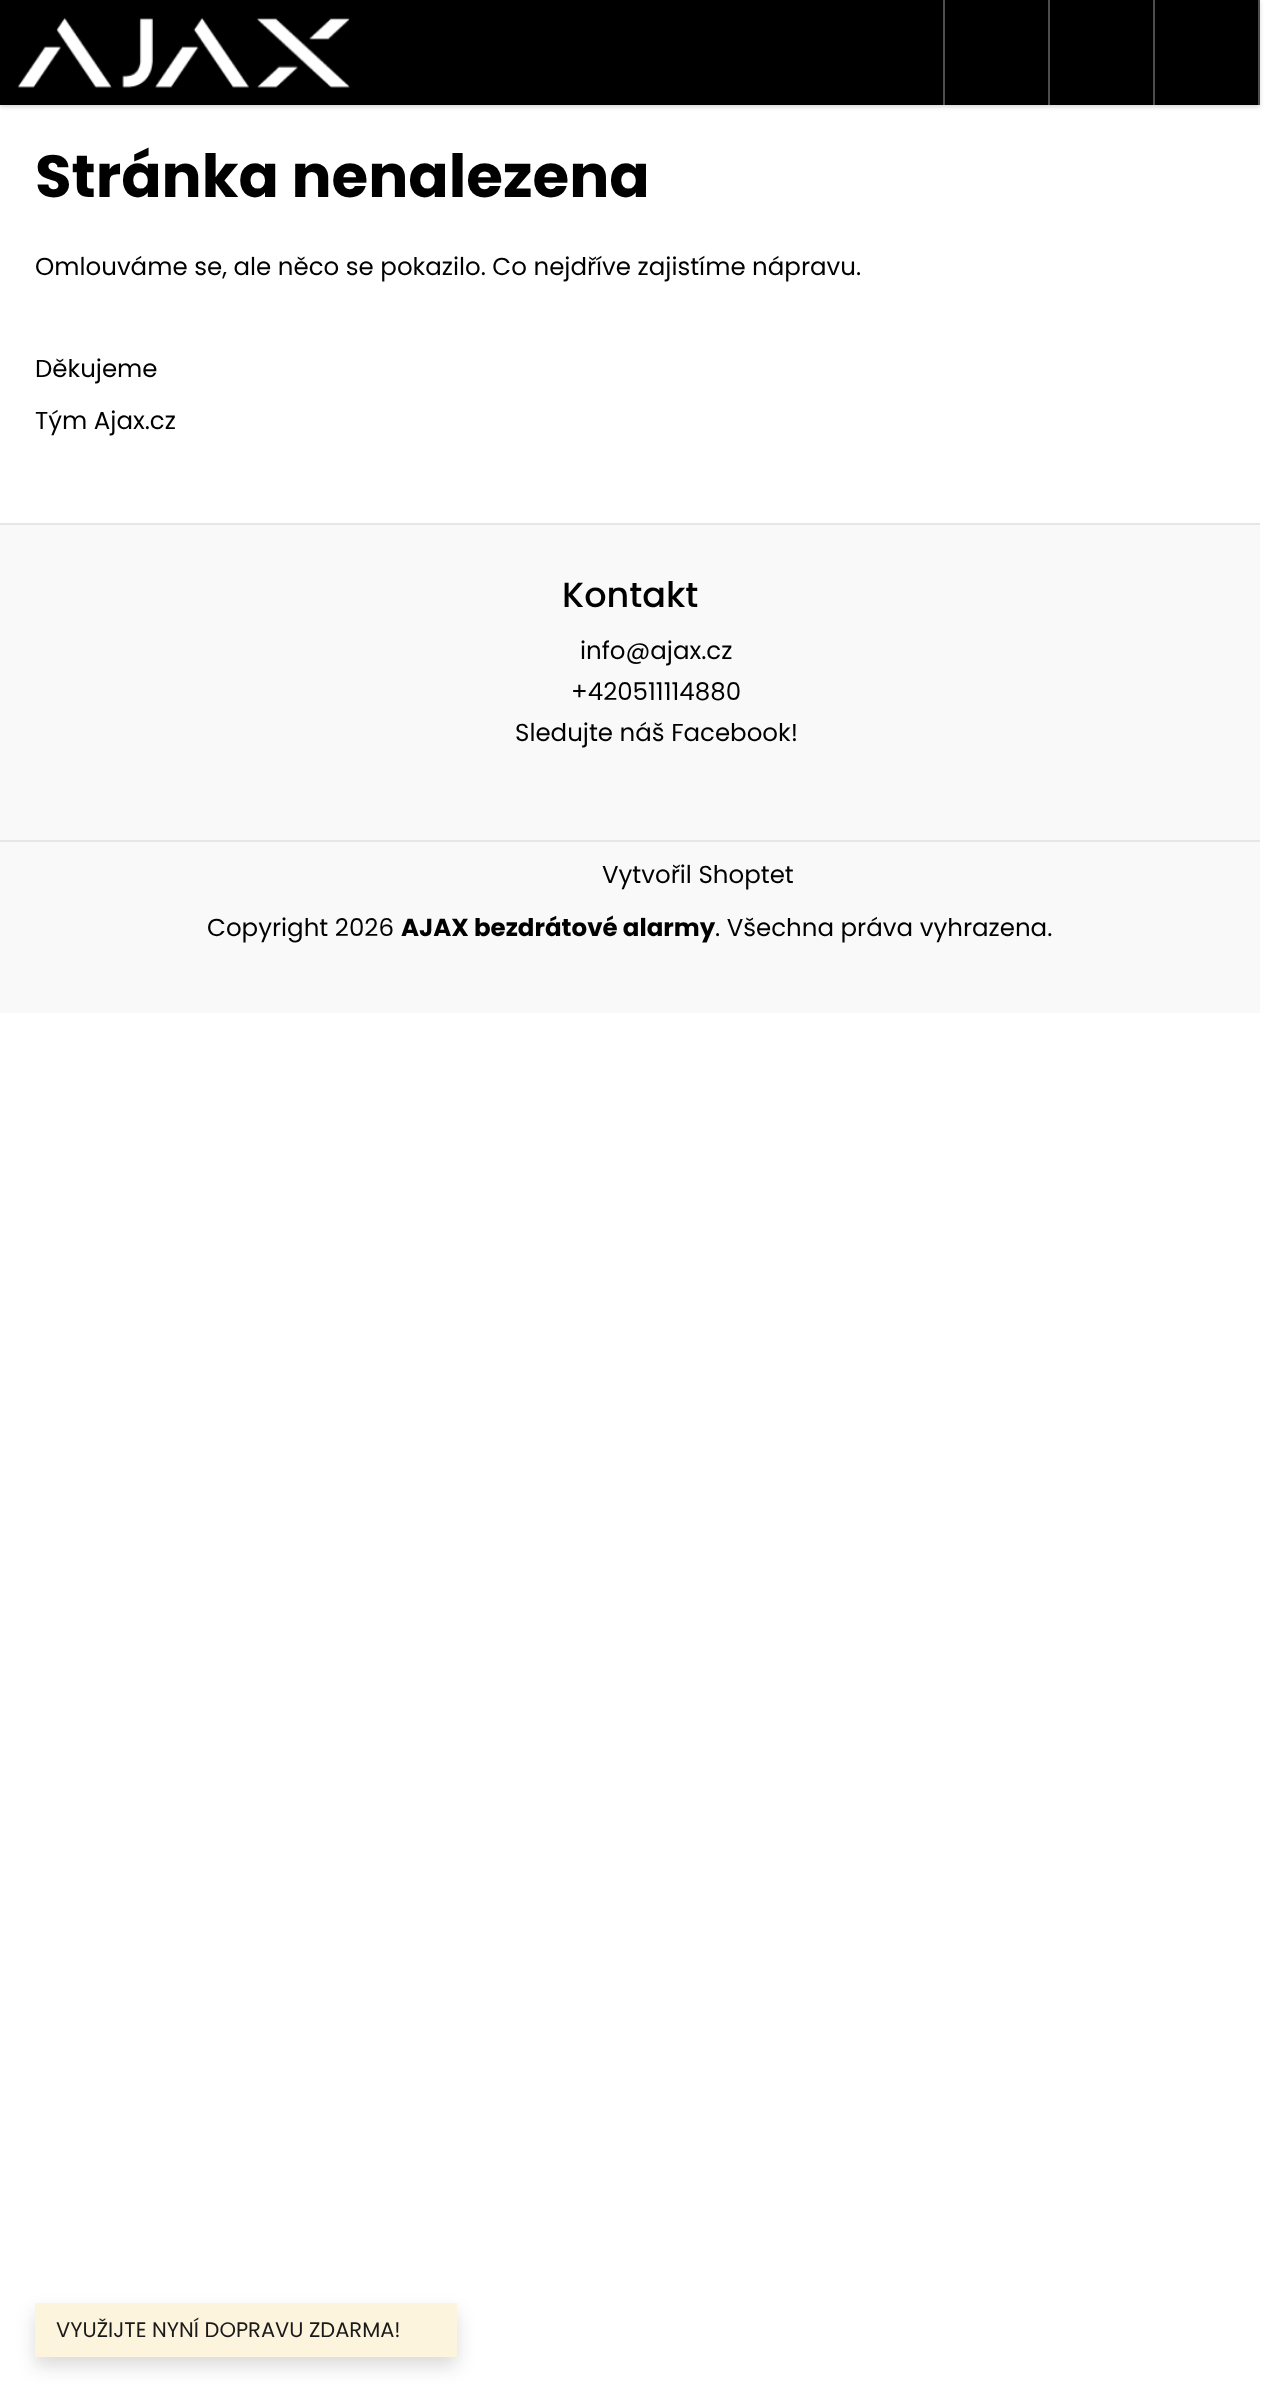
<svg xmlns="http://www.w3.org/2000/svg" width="1286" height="2392">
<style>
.a{font:bold 59.5px Poppins;fill:#000}
.b{font:24.5px Poppins;fill:#000}
.c{font:500 35px Poppins;fill:#000}
.d{font:bold 24.5px Poppins;fill:#000}
.e{font:21px Poppins;fill:#1a1a1a}
</style>
<rect width="100%" height="100%" fill="#fff"/>
<path fill="#00000029" filter="blur(2px)" d="M0 2h1260v105H0z"/>
<path fill="#000" d="M0 0h1258v105H0z"/>
<image href="1.png" x="17" y="17" width="333" height="71"/>
<path fill="#4d4d4d" d="M1258 0h2v105H1258z"/>
<path fill="#4d4d4d" d="M943 0h2v105H943z"/>
<path fill="#4d4d4d" d="M1048 0h2v105H1048z"/>
<path fill="#4d4d4d" d="M1153 0h2v105H1153z"/>
<path fill="#f9f9f9" d="M0 525h1260v488H0z"/>
<path fill="#e6e6e6" d="M0 523h1260v2H0z"/>
<path fill="#e6e6e6" d="M0 840h1260v2H0z"/>
<path fill="#1a1a1a29" filter="blur(9px)" d="M35 2312h422v54H35z"/>
<path fill="#fdf4de" d="M35 2303h422v54H35z"/>
<text class="a" x="35" y="197">Stránka nenalezena</text>
<text class="b" x="35" y="275">Omlouváme se, ale něco se pokazilo. Co nejdříve zajistíme nápravu.</text>
<text class="b" x="35" y="377">Děkujeme</text>
<text class="b" x="35" y="429">Tým Ajax.cz</text>
<text class="c" x="562" y="607">Kontakt</text>
<text class="b" x="580" y="659">info@ajax.cz</text>
<text class="b" x="571" y="700">+420511114880</text>
<text class="b" x="515" y="741">Sledujte náš Facebook!</text>
<text class="b" x="602" y="883">Vytvořil Shoptet</text>
<text class="b" x="207" y="936">Copyright 2026</text>
<text class="d" x="401" y="936">AJAX bezdrátové alarmy</text>
<text class="b" x="715" y="936">. Všechna práva vyhrazena.</text>
<text class="e" x="56" y="2337">VYUŽIJTE NYNÍ DOPRAVU ZDARMA!</text>
</svg>
